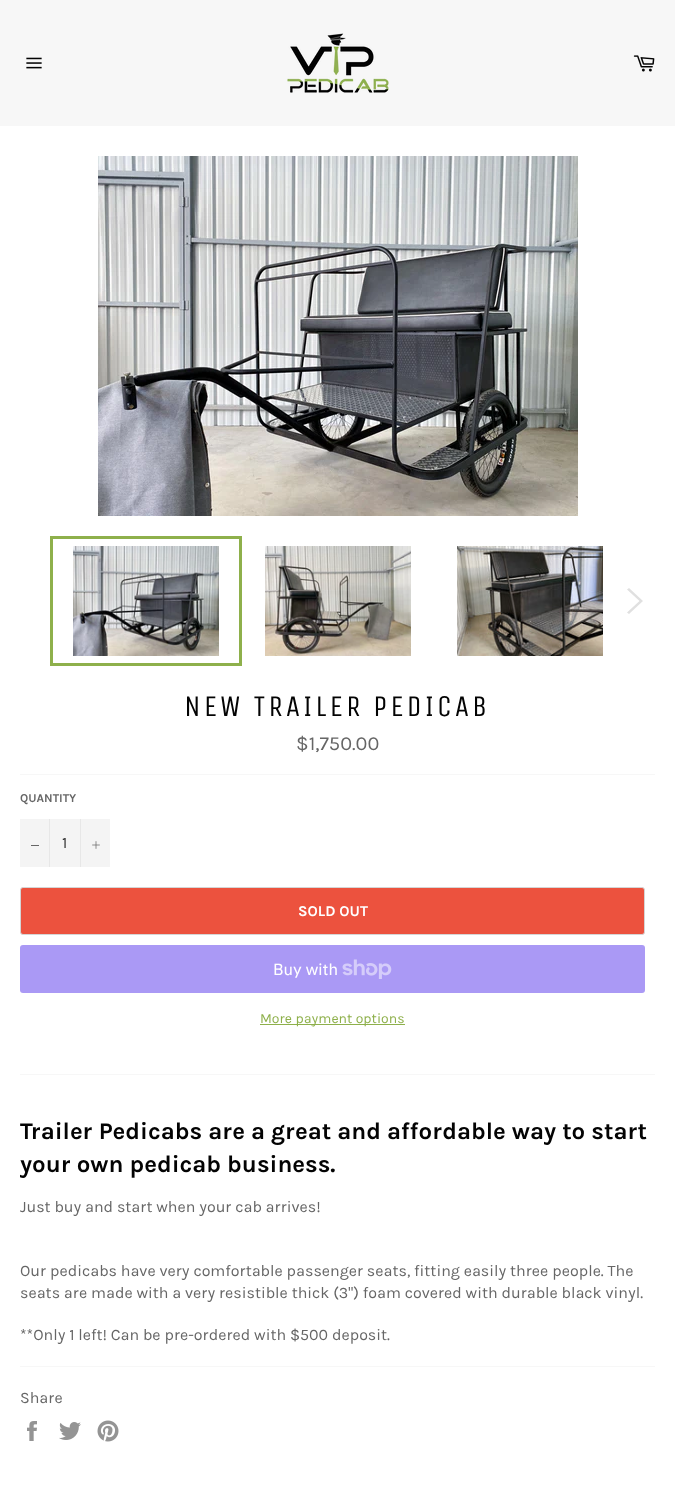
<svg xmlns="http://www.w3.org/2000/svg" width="675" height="1505">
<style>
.a{font:30px Unica One;letter-spacing:3px;fill:#030303}
.b{font:20px Karla;fill:#666}
.c{font:bold 12px Karla;fill:#666}
.d{font:16px Karla;fill:#333}
.e{font:bold 15px Karla;fill:#fff}
.f{font:16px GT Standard;fill:#fff}
.g{font:14px Karla;fill:#8eb04b}
.h{font:bold 24px Karla;fill:#030303}
.i{font:16px Karla;fill:#666}
</style>
<rect width="100%" height="100%" fill="#f7f7f7"/>
<image href="1.png" x="26" y="57" width="16" height="12"/>
<image href="2.png" x="287" y="33" width="102" height="60"/>
<image href="3.png" x="633" y="55" width="22" height="17"/>
<path fill="#fff" d="M0 126h675v1379H0z"/>
<image href="4.png" x="98" y="156" width="480" height="360"/>
<image href="5.png" x="73" y="546" width="146" height="110"/>
<path fill="none" stroke="#8eb04b" stroke-width="3" d="M51.5 537.5h189v127H51.5z"/>
<image href="6.png" x="265" y="546" width="146" height="110"/>
<image href="7.png" x="457" y="546" width="146" height="110"/>
<path fill="#e0e0e0" d="M627 589.5l2-1.5l14 13l-14 13l-2-1.5l12.5-11.5z"/>
<path fill="#f7f7f7" d="M20 774h635v1H20z"/>
<path fill="#f4f4f4" d="M20 819h90v48H20z"/>
<path fill="#e7e7e7" d="M49 819h1v48H49z"/>
<path fill="#666" d="M31 845h8v1H31z"/>
<path fill="#e7e7e7" d="M80 819h1v48H80z"/>
<image href="8.png" x="92" y="841" width="8" height="8"/>
<rect fill="#ec523e" stroke="#d5d5d5" x="20.5" y="887.5" width="624" height="47" rx="2.5"/>
<rect fill="#aa99f5" x="20" y="945" width="625" height="48" rx="3"/>
<image href="9.png" x="342" y="959" width="50" height="20"/>
<path fill="#8eb04b" d="M260 1024h145v1H260z"/>
<path fill="#f7f7f7" d="M20 1074h635v1H20z"/>
<path fill="#f7f7f7" d="M20 1366h635v1H20z"/>
<image href="10.png" x="27" y="1421" width="10" height="20"/>
<image href="11.png" x="59" y="1422" width="22" height="18"/>
<image href="12.png" x="97" y="1420" width="22" height="22"/>
<text class="a" x="184" y="716">NEW TRAILER PEDICAB</text>
<text class="b" x="296" y="750">$1,750.00</text>
<text class="c" x="20" y="802">QUANTITY</text>
<text class="d" x="62" y="848">1</text>
<text class="e" x="298" y="916">SOLD OUT</text>
<text class="f" x="273" y="975">Buy with</text>
<text class="g" x="260" y="1023">More payment options</text>
<text class="h" x="20" y="1139">Trailer Pedicabs are a great and affordable way to start</text>
<text class="h" x="20" y="1172">your own pedicab business.</text>
<text class="i" x="20" y="1212">Just buy and start when your cab arrives!</text>
<text class="i" x="20" y="1276">Our pedicabs have very comfortable passenger seats, fitting easily three people. The</text>
<text class="i" x="20" y="1298">seats are made with a very resistible thick (3") foam covered with durable black vinyl.</text>
<text class="i" x="20" y="1340">**Only 1 left! Can be pre-ordered with $500 deposit.</text>
<text class="i" x="20" y="1403">Share</text>
</svg>
